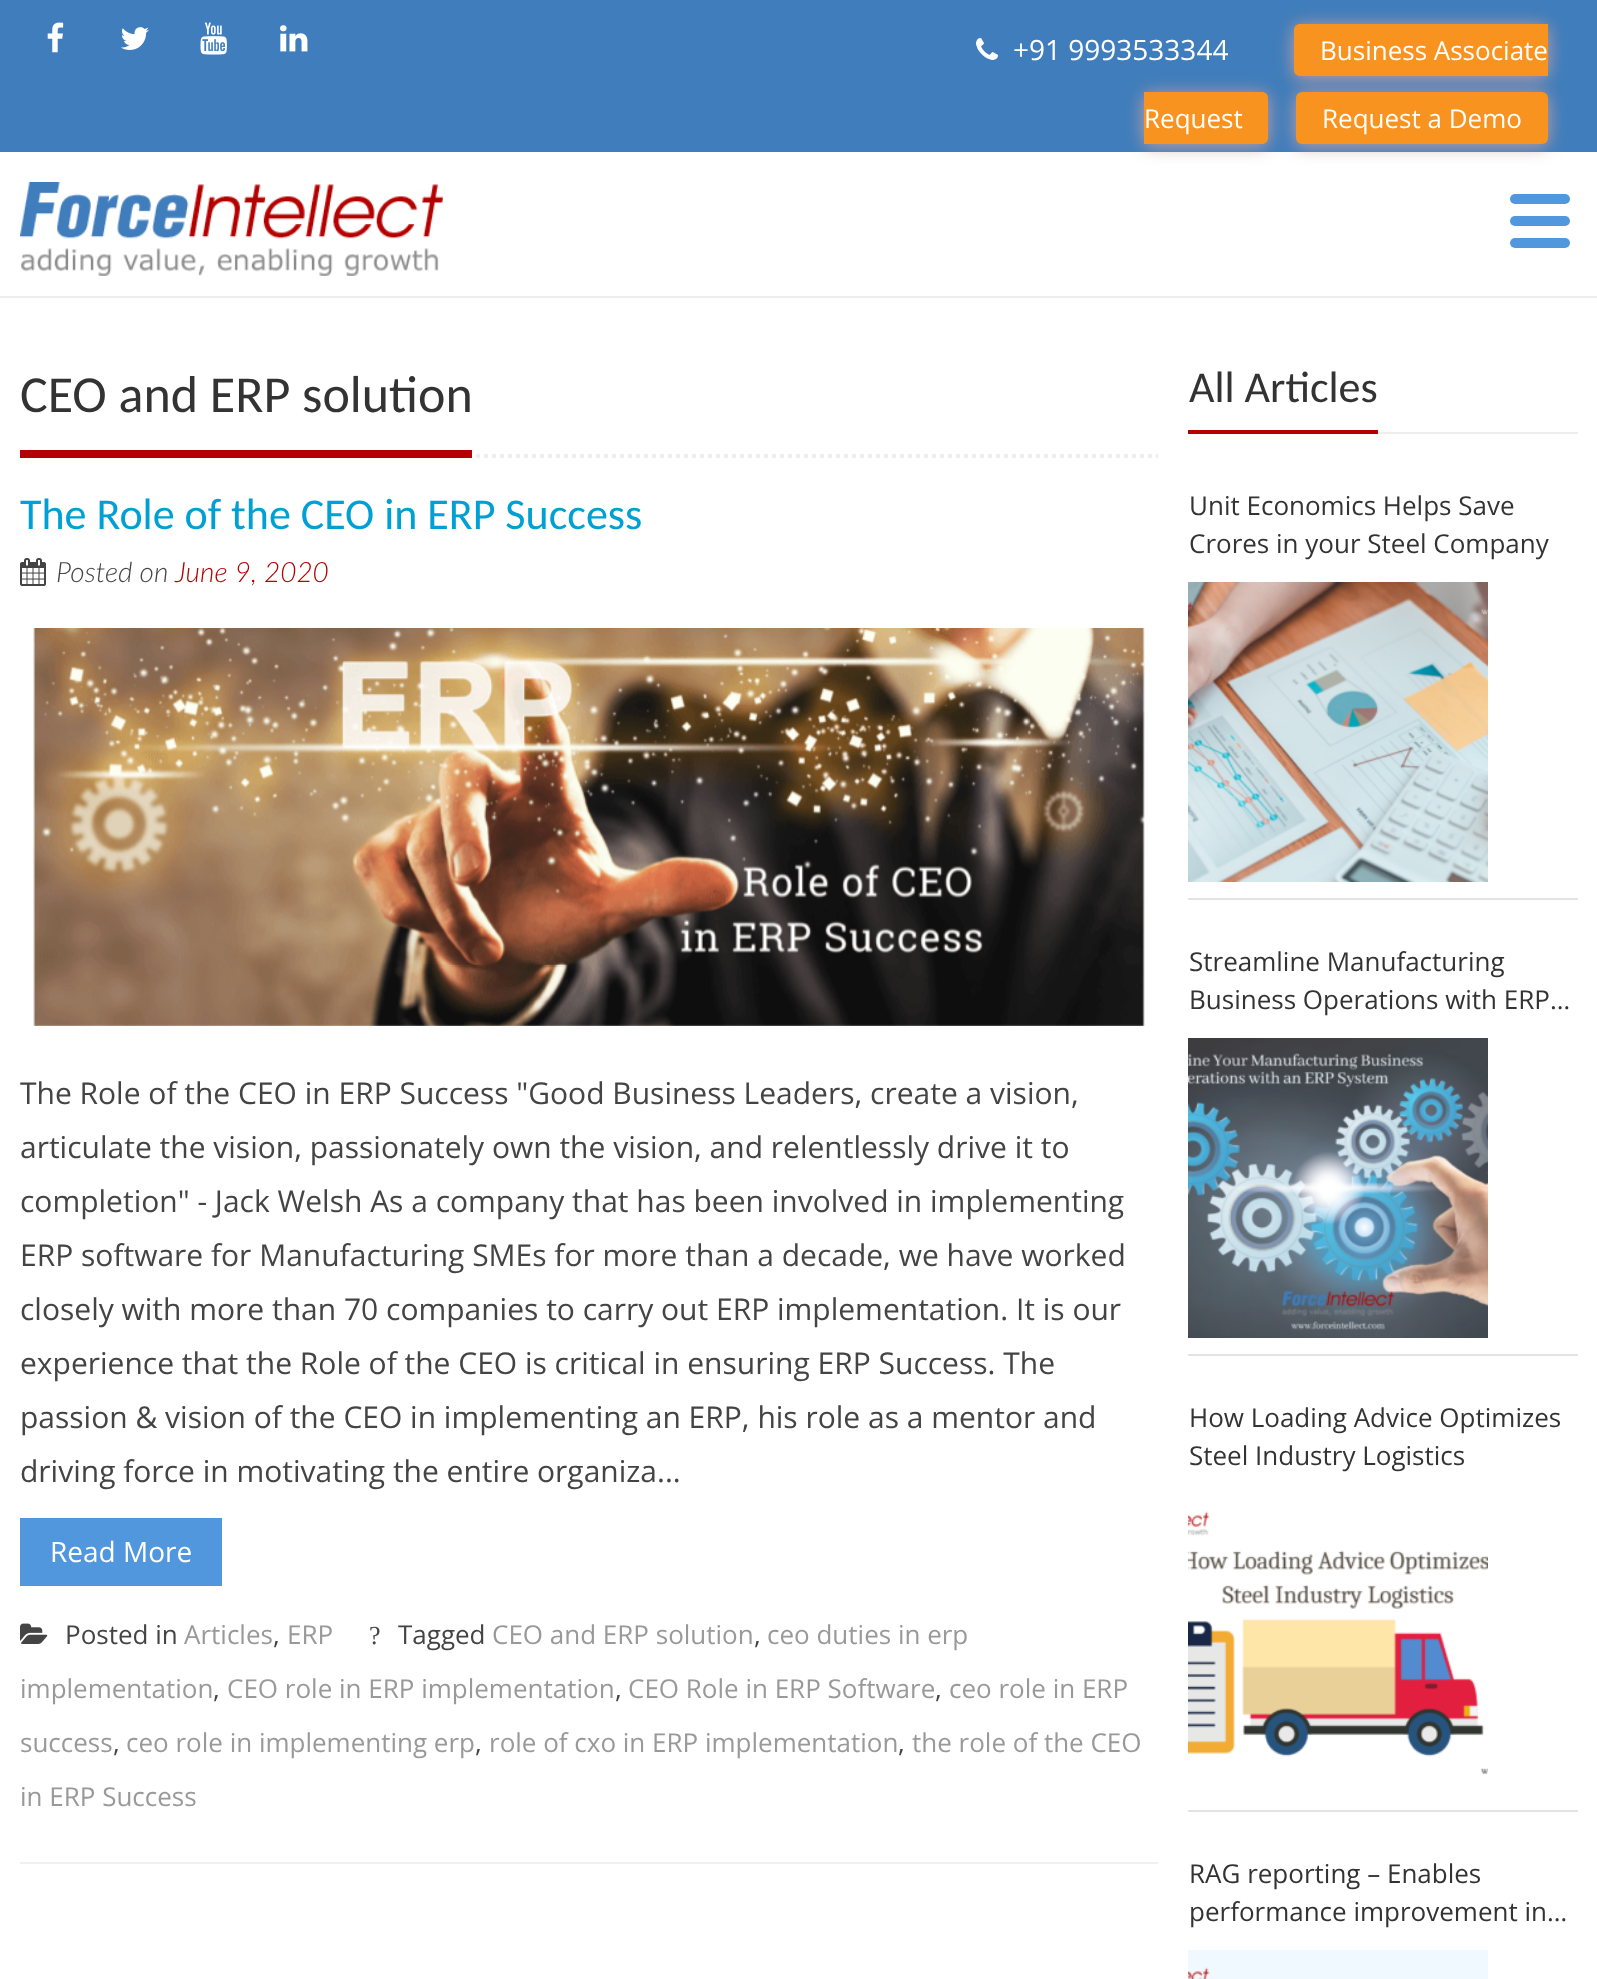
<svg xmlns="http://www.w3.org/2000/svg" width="1597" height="1979">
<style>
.a{font:28px Open Sans;fill:#fff}
.b{font:26px Open Sans;fill:#fff}
.c{font:52px Carlito;fill:#333}
.d{font:44px Carlito;fill:#00a0d4}
.e{font:italic 300 28px Lato;fill:#444}
.f{font:italic 300 28px Lato;fill:#b40000}
.g{font:30px Open Sans;fill:#444}
.h{font:26px Open Sans;fill:#444}
.i{font:26px Open Sans;fill:#999}
.j{font:26px Liberation Serif;fill:#444}
.k{font:44px Carlito;fill:#333}
.l{font:26px Open Sans;fill:#333}
</style>
<rect width="100%" height="100%" fill="#fff"/>
<path fill="#eee" d="M0 296h1597v2H0z"/>
<path fill="#3f7dbc" d="M0 0h1597v152H0z"/>
<image href="1.png" x="47" y="22" width="17" height="31"/>
<image href="2.png" x="121" y="27" width="28" height="23"/>
<image href="3.png" x="200" y="22" width="27" height="33"/>
<image href="4.png" x="280" y="25" width="28" height="27"/>
<image href="5.png" x="976" y="38" width="22" height="22"/>
<rect fill="#c5a1a1" filter="blur(9px)" x="1294" y="26" width="254" height="52" rx="6"/>
<path fill="#f8931f" d="M1300 24h248v52h-248c-3.5 0-6-2.5-6-6v-40c0-3.5 2.5-6 6-6z"/>
<rect fill="#c5a1a1" filter="blur(9px)" x="1144" y="94" width="124" height="52" rx="6"/>
<path fill="#f8931f" d="M1144 92h118c3.5 0 6 2.5 6 6v40c0 3.5-2.5 6-6 6h-118z"/>
<rect fill="#c5a1a1" filter="blur(9px)" x="1296" y="94" width="252" height="52" rx="6"/>
<rect fill="#f8931f" x="1296" y="92" width="252" height="52" rx="6"/>
<image href="6.png" x="20" y="182" width="424" height="94"/>
<rect fill="#5197de" x="1510" y="194" width="60" height="10" rx="5"/>
<rect fill="#5197de" x="1510" y="216" width="60" height="10" rx="5"/>
<rect fill="#5197de" x="1510" y="238" width="60" height="10" rx="5"/>
<path fill="none" stroke="#eee" stroke-width="4" stroke-dasharray="4 4" d="M20 456h1138"/>
<path fill="#b40000" d="M20 450h452v8H20z"/>
<path fill="#f0f0f0" d="M20 1862h1138v2H20z"/>
<image href="7.png" x="20" y="558" width="26" height="28"/>
<image href="8.png" x="33" y="628" width="1112" height="398"/>
<path fill="#5197de" d="M20 1518h202v68H20z"/>
<image href="9.png" x="20" y="1623" width="28" height="21"/>
<path fill="#eee" d="M1378 432h200v2H1378z"/>
<path fill="#b40000" d="M1188 430h190v4H1188z"/>
<path fill="#e3e3e3" d="M1188 898h390v2H1188z"/>
<image href="10.png" x="1188" y="582" width="300" height="300"/>
<path fill="#e3e3e3" d="M1188 1354h390v2H1188z"/>
<image href="11.png" x="1188" y="1038" width="300" height="300"/>
<path fill="#e3e3e3" d="M1188 1810h390v2H1188z"/>
<image href="12.png" x="1188" y="1511" width="300" height="264"/>
<image href="13.png" x="1188" y="1950" width="300" height="29"/>
<text class="a" x="1013" y="60">+91 9993533344</text>
<text class="b" x="1320" y="60">Business Associate</text>
<text class="b" x="1144" y="128">Request</text>
<text class="b" x="1322" y="128">Request a Demo</text>
<text class="c" x="20" y="412">CEO and ERP solution</text>
<text class="d" x="20" y="529">The Role of the CEO in ERP Success</text>
<text class="e" x="56" y="582">Posted on</text>
<text class="f" x="175" y="582">June 9, 2020</text>
<text class="g" x="20" y="1104">The Role of the CEO in ERP Success "Good Business Leaders, create a vision,</text>
<text class="g" x="20" y="1158">articulate the vision, passionately own the vision, and relentlessly drive it to</text>
<text class="g" x="20" y="1212">completion" - Jack Welsh As a company that has been involved in implementing</text>
<text class="g" x="20" y="1266">ERP software for Manufacturing SMEs for more than a decade, we have worked</text>
<text class="g" x="20" y="1320">closely with more than 70 companies to carry out ERP implementation. It is our</text>
<text class="g" x="20" y="1374">experience that the Role of the CEO is critical in ensuring ERP Success. The</text>
<text class="g" x="20" y="1428">passion &amp; vision of the CEO in implementing an ERP, his role as a mentor and</text>
<text class="g" x="20" y="1482">driving force in motivating the entire organiza...</text>
<text class="a" x="50" y="1562">Read More</text>
<text class="h" x="65" y="1644">Posted in</text>
<text class="i" x="184" y="1644">Articles</text>
<text class="h" x="273" y="1644">,</text>
<text class="i" x="287" y="1644">ERP</text>
<text class="j" x="369" y="1644">?</text>
<text class="h" x="398" y="1644">Tagged</text>
<text class="i" x="492" y="1644">CEO and ERP solution</text>
<text class="h" x="754" y="1644">,</text>
<text class="i" x="767" y="1644">ceo duties in erp</text>
<text class="i" x="20" y="1698">implementation</text>
<text class="h" x="213" y="1698">,</text>
<text class="i" x="227" y="1698">CEO role in ERP implementation</text>
<text class="h" x="615" y="1698">,</text>
<text class="i" x="628" y="1698">CEO Role in ERP Software</text>
<text class="h" x="935" y="1698">,</text>
<text class="i" x="949" y="1698">ceo role in ERP</text>
<text class="i" x="20" y="1752">success</text>
<text class="h" x="113" y="1752">,</text>
<text class="i" x="126" y="1752">ceo role in implementing erp</text>
<text class="h" x="475" y="1752">,</text>
<text class="i" x="489" y="1752">role of cxo in ERP implementation</text>
<text class="h" x="898" y="1752">,</text>
<text class="i" x="912" y="1752">the role of the CEO</text>
<text class="i" x="20" y="1806">in ERP Success</text>
<text class="k" x="1189" y="402">All Articles</text>
<text class="l" x="1189" y="515">Unit Economics Helps Save</text>
<text class="l" x="1189" y="553">Crores in your Steel Company</text>
<text class="l" x="1189" y="971">Streamline Manufacturing</text>
<text class="l" x="1189" y="1009">Business Operations with ERP…</text>
<text class="l" x="1189" y="1427">How Loading Advice Optimizes</text>
<text class="l" x="1189" y="1465">Steel Industry Logistics</text>
<text class="l" x="1189" y="1883">RAG reporting – Enables</text>
<text class="l" x="1189" y="1921">performance improvement in…</text>
</svg>
